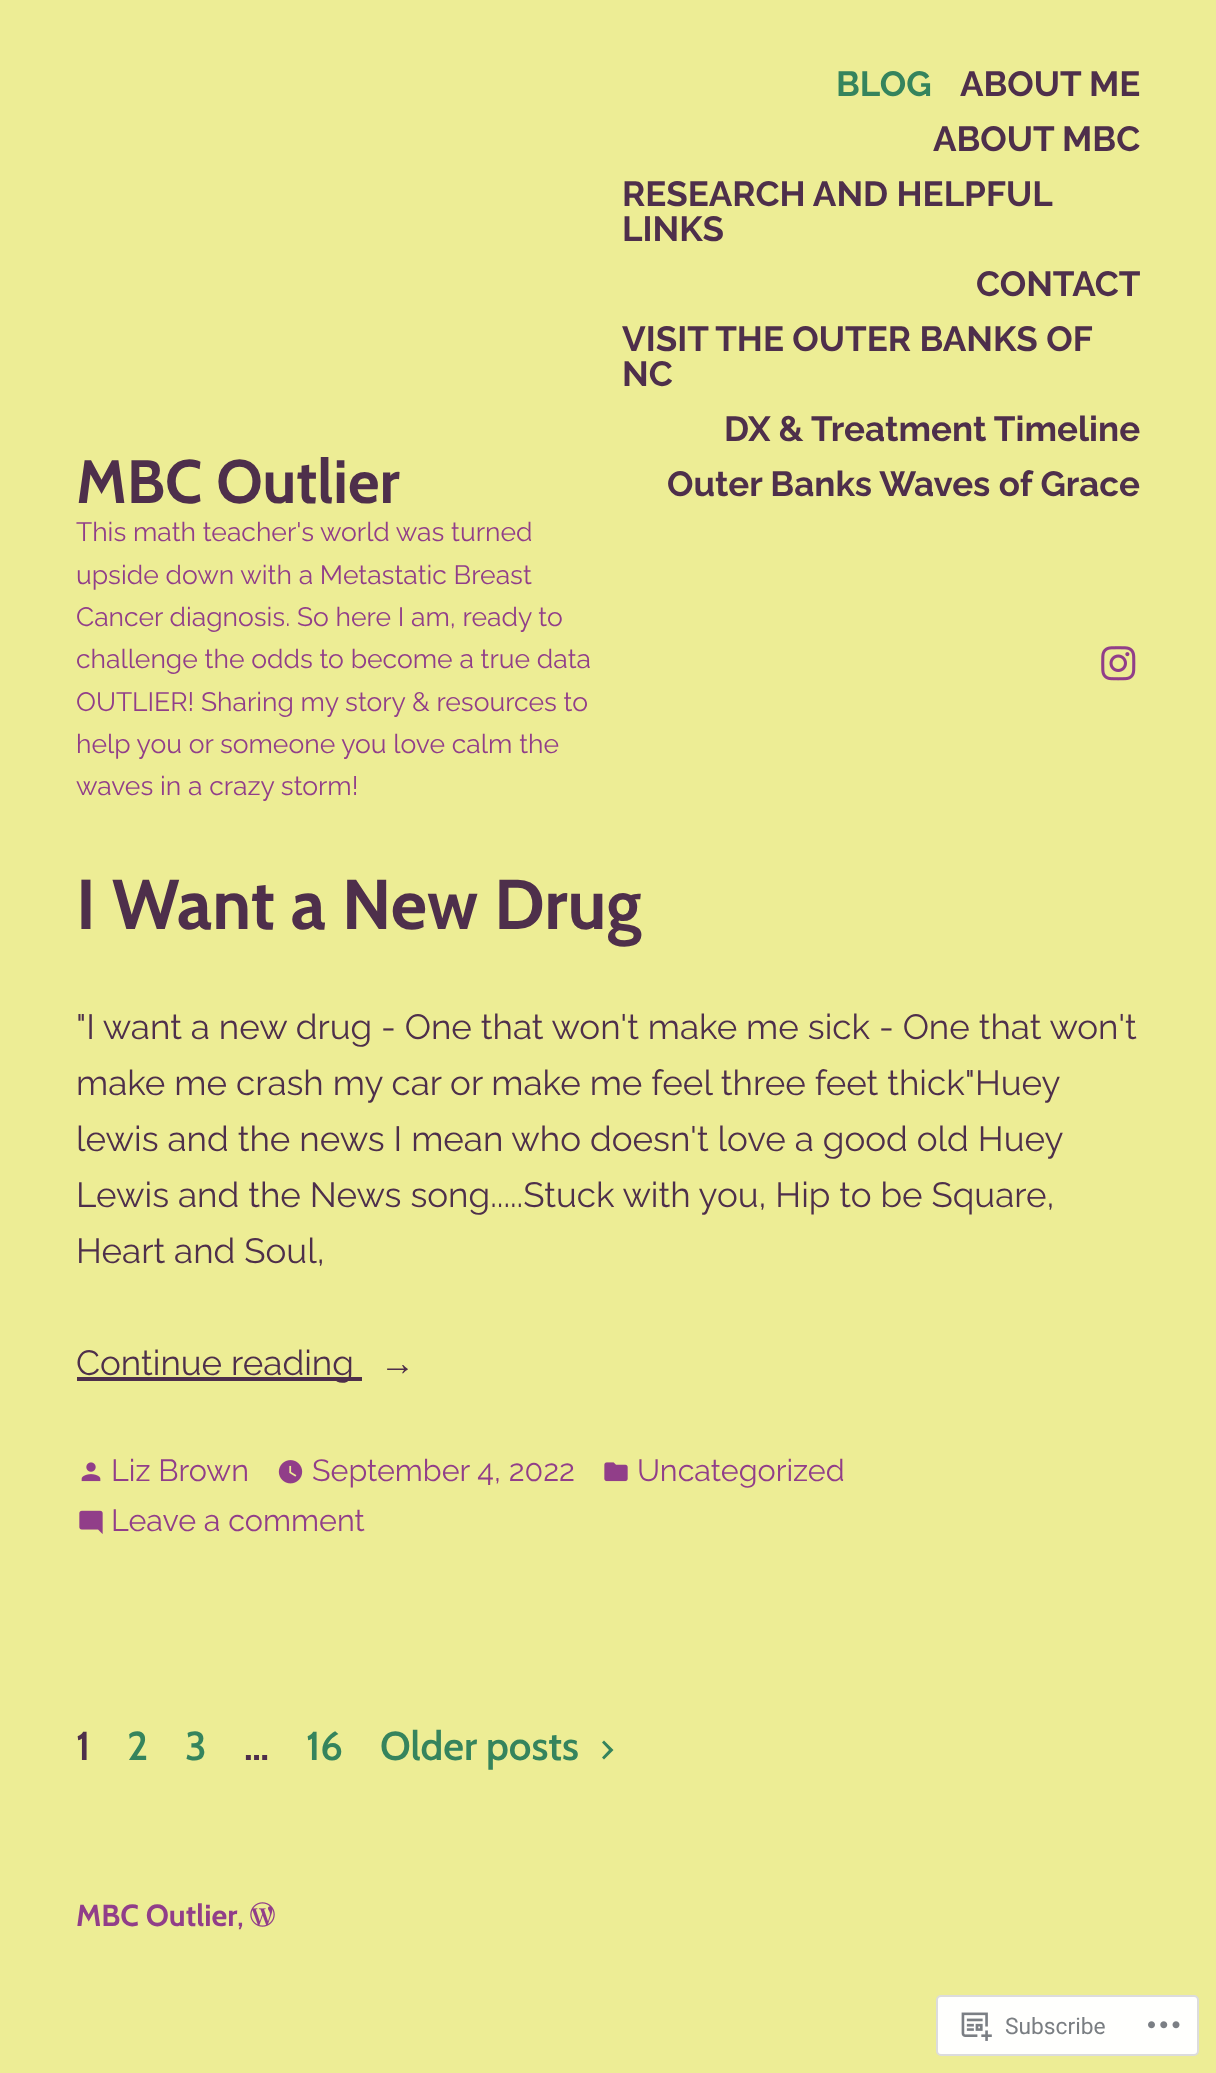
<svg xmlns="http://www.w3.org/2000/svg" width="1216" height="2073">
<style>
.a{font:bold 61.25px Cabin;fill:#4e2f4b}
.b{font:bold 35px Raleway;fill:#35845d}
.c{font:bold 35px Raleway;fill:#4e2f4b}
.d{font:26.5px Raleway;fill:#913e89}
.e{font:bold 70.5px Cabin;fill:#4e2f4b}
.f{font:35px Raleway;fill:#4e2f4b}
.g{font:35px Liberation Serif;fill:#4e2f4b}
.h{font:30.5px Raleway;fill:#913e89}
.i{font:600 40.25px Cabin;fill:#4e2f4b}
.j{font:600 40.25px Cabin;fill:#35845d}
.k{font:bold 30.5px Cabin;fill:#913e89}
.l{font:30.5px Cabin;fill:#913e89}
.m{font:22.75px Roboto;fill:#7a7e82}
</style>
<rect width="100%" height="100%" fill="#eded95"/>
<image href="1.png" x="1101" y="646" width="35" height="35"/>
<path fill="#4e2f4b" d="M77 1377h285v4H77z"/>
<image href="2.png" x="81" y="1462" width="20" height="20"/>
<image href="3.png" x="278" y="1460" width="25" height="24"/>
<image href="4.png" x="604" y="1462" width="24" height="20"/>
<image href="5.png" x="79" y="1510" width="24" height="24"/>
<path fill="#35845d" d="M604 1740.5l-2 2l7 7.5l-7 7.5l2 2l9.5-9.5z"/>
<image href="6.png" x="250" y="1902" width="25" height="25"/>
<rect fill="#fffffd" stroke="#dcdcdd" stroke-width="2" x="937" y="1996" width="261" height="59" rx="4"/>
<image href="7.png" x="961" y="2012" width="31" height="29"/>
<image href="8.png" x="1148" y="2021" width="32" height="8"/>
<text class="a" x="76" y="503">MBC Outlier</text>
<text class="b" x="836" y="96">BLOG</text>
<text class="c" x="960" y="96">ABOUT ME</text>
<text class="c" x="933" y="151">ABOUT MBC</text>
<text class="c" x="622" y="206">RESEARCH AND HELPFUL</text>
<text class="c" x="622" y="241">LINKS</text>
<text class="c" x="976" y="296">CONTACT</text>
<text class="c" x="622" y="351">VISIT THE OUTER BANKS OF</text>
<text class="c" x="622" y="386">NC</text>
<text class="c" x="724" y="441">DX &amp; Treatment Timeline</text>
<text class="c" x="667" y="496">Outer Banks Waves of Grace</text>
<text class="d" x="76" y="541">This math teacher's world was turned</text>
<text class="d" x="76" y="584">upside down with a Metastatic Breast</text>
<text class="d" x="76" y="626">Cancer diagnosis. So here I am, ready to</text>
<text class="d" x="76" y="668">challenge the odds to become a true data</text>
<text class="d" x="76" y="711">OUTLIER! Sharing my story &amp; resources to</text>
<text class="d" x="76" y="753">help you or someone you love calm the</text>
<text class="d" x="76" y="795">waves in a crazy storm!</text>
<text class="e" x="76" y="929">I Want a New Drug</text>
<text class="f" x="76" y="1039">"I want a new drug - One that won't make me sick - One that won't</text>
<text class="f" x="76" y="1095">make me crash my car or make me feel three feet thick"Huey</text>
<text class="f" x="76" y="1151">lewis and the news I mean who doesn't love a good old Huey</text>
<text class="f" x="76" y="1207">Lewis and the News song.....Stuck with you, Hip to be Square,</text>
<text class="f" x="76" y="1263">Heart and Soul,</text>
<text class="f" x="76" y="1375">Continue reading</text>
<text class="g" x="380" y="1375">→</text>
<text class="h" x="111" y="1481">Liz Brown</text>
<text class="h" x="312" y="1481">September 4, 2022</text>
<text class="h" x="637" y="1481">Uncategorized</text>
<text class="h" x="111" y="1531">Leave a comment</text>
<text class="i" x="76" y="1760">1</text>
<text class="j" x="127" y="1760">2</text>
<text class="j" x="185" y="1760">3</text>
<text class="i" x="244" y="1760">…</text>
<text class="j" x="306" y="1760">16</text>
<text class="j" x="380" y="1760">Older posts</text>
<text class="k" x="76" y="1926">MBC Outlier</text>
<text class="l" x="237" y="1926">,</text>
<text class="m" x="1005" y="2034">Subscribe</text>
</svg>
